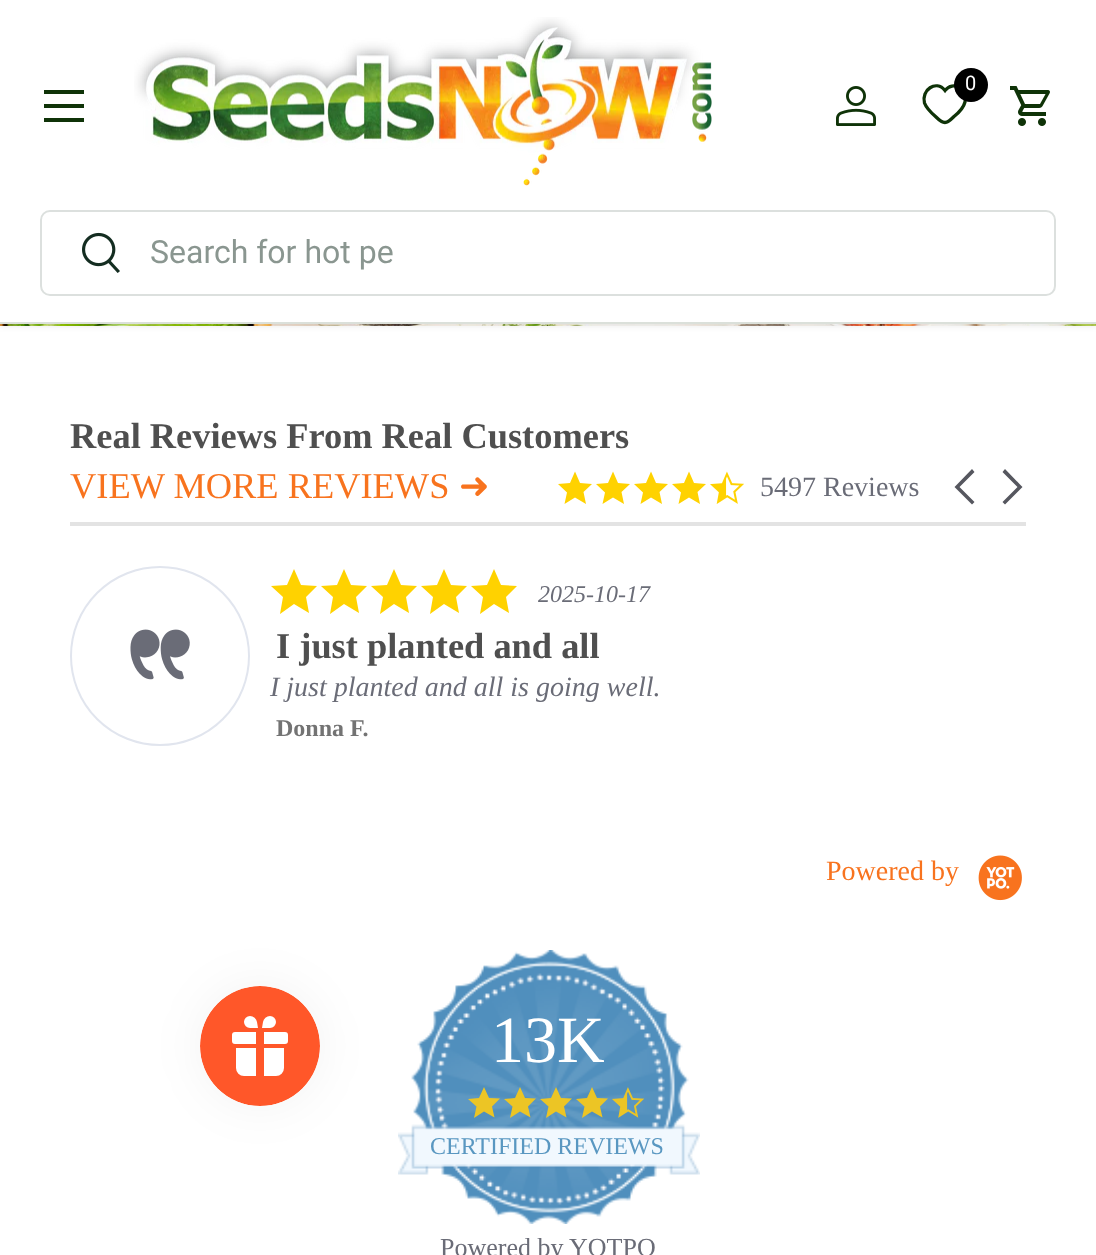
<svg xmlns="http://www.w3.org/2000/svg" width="1096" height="1255">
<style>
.a{font:20px Roboto;letter-spacing:1px;fill:#fff}
.b{font:32px Roboto;fill:#8a9690}
.c{font:bold 36.4px Liberation Serif;fill:#4f4f4f}
.d{font:36.4px Liberation Serif;fill:#f8731e}
.e{font:36.4px DejaVu Sans;fill:#f8731e}
.f{font:28px Liberation Serif;fill:#6a6c77}
.g{font:italic 24px Liberation Serif;fill:#6a6c77}
.h{font:italic 28px Liberation Serif;fill:#6a6c77}
.i{font:bold 24px Liberation Serif;fill:#737373}
.j{font:28px Liberation Serif;fill:#f8731e}
.k{font:66px Liberation Serif;fill:#fff}
.l{font:24px Liberation Serif;fill:#5997c1}
.m{font:26px Liberation Serif;fill:#6a6c77}
</style>
<rect width="100%" height="100%" fill="#fff"/>
<image href="5.png" x="0" y="324" width="1096" height="2"/>
<path fill="#00000014" filter="blur(3px)" d="M-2 -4h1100v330H-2z"/>
<path fill="#fff" d="M0 0h1096v322H0z"/>
<image href="1.png" x="134" y="17" width="578" height="169"/>
<path fill="none" stroke="#0f3308" stroke-width="3.3" d="M945 122.5c-3 0-7.5-4-9.5-6c-4-3.5-9-8-11-13.5c-3.5-13 11.5-23.5 20.5-12.5c8-10.5 23.5-1.5 20 11.5c-1.5 6-6 10.5-11 14.5c-1 1-6.5 6-9 6z"/>
<circle fill="#000" cx="971" cy="85" r="17"/>
<image href="2.png" x="836" y="86" width="40" height="40"/>
<image href="3.png" x="1010" y="86" width="40" height="40"/>
<path fill="#0f3308" d="M44 90h40v4H44z"/>
<path fill="#0f3308" d="M44 118h40v4H44z"/>
<path fill="#0f3308" d="M44 104h40v4H44z"/>
<rect fill="none" stroke="#dce0de" stroke-width="2" x="41" y="211" width="1014" height="84" rx="9"/>
<image href="4.png" x="82" y="232" width="38" height="41"/>
<path fill="#dbe0da" d="M0 322h1096v2H0z"/>
<path fill="#e3e3e3" d="M70 522h956v4H70z"/>
<path fill="#ffd200" d="M586 504l-11-6.5l-10.5 6.5l2.5-11.5l-9-8.5l12-1l5-11.5l5 11.5l12 1l-8.5 8z"/>
<path fill="#ffd200" d="M624 504l-11-6.5l-10.5 6.5l2.5-11.5l-9-8.5l12-1l5-11.5l5 11.5l12 1l-8.5 8z"/>
<path fill="#ffd200" d="M662 504l-11-6.5l-10.5 6.5l2.5-11.5l-9-8.5l12-1l5-11.5l5 11.5l12 1l-8.5 8z"/>
<path fill="#ffd200" d="M700 504l-11-6.5l-10.5 6.5l2.5-11.5l-9-8.5l12-1l5-11.5l5 11.5l12 1l-8.5 8z"/>
<image href="6.png" x="710" y="471" width="34" height="33"/>
<path fill="#56575f" d="M957 484.5l15-15.5l2.5 3l-15 15l15 15l-2.5 2.5l-17.5-17.5z"/>
<path fill="#56575f" d="M1020 484.5l-15-15.5l-2.5 3l15 15l-15 15l2.5 2.5l17.5-17.5z"/>
<circle fill="none" stroke="#e1e5ee" stroke-width="2" cx="160" cy="656" r="89"/>
<image href="7.png" x="130" y="629" width="60" height="51"/>
<path fill="#ffd200" d="M309 613l-15-9l-14 10l3-17l-12-11l16-1l7-16l7 16l16 1l-11 11z"/>
<path fill="#ffd200" d="M359 613l-15-9l-14 10l3-17l-12-11l16-1l7-16l7 16l16 1l-11 11z"/>
<path fill="#ffd200" d="M409 613l-15-9l-14 10l3-17l-12-11l16-1l7-16l7 16l16 1l-11 11z"/>
<path fill="#ffd200" d="M459 613l-15-9l-14 10l3-17l-12-11l16-1l7-16l7 16l16 1l-11 11z"/>
<path fill="#ffd200" d="M509 613l-15-9l-14 10l3-17l-12-11l16-1l7-16l7 16l16 1l-11 11z"/>
<image href="8.png" x="978" y="855" width="44" height="46"/>
<image href="9.png" x="398" y="950" width="302" height="274"/>
<path fill="#ecc525" d="M494.5 1117.5l-10.5-6l-10 6.5l2.5-11.5l-8.5-7.5l11-1l5-11l5 11l11 .5l-8 8z"/>
<path fill="#ecc525" d="M530.5 1117.5l-10.5-6l-10 6.5l2.5-11.5l-8.5-7.5l11-1l5-11l5 11l11 .5l-8 8z"/>
<path fill="#ecc525" d="M566.5 1117.5l-10.5-6l-10 6.5l2.5-11.5l-8.5-7.5l11-1l5-11l5 11l11 .5l-8 8z"/>
<path fill="#ecc525" d="M602.5 1117.5l-10.5-6l-10 6.5l2.5-11.5l-8.5-7.5l11-1l5-11l5 11l11 .5l-8 8z"/>
<image href="10.png" x="612" y="1087" width="33" height="31"/>
<rect fill="#0000000d" filter="blur(25px)" x="200" y="986" width="120" height="120" rx="60"/>
<image href="11.png" x="200" y="986" width="120" height="120"/>
<text class="a" x="965" y="90">0</text>
<text class="b" x="150" y="263">Search for hot pe</text>
<text class="c" x="70" y="448">Real Reviews From Real Customers</text>
<text class="d" x="70" y="498">VIEW MORE REVIEWS</text>
<text class="e" x="459" y="498">➜</text>
<text class="f" x="760" y="496">5497 Reviews</text>
<text class="g" x="538" y="602">2025-10-17</text>
<text class="c" x="276" y="658">I just planted and all</text>
<text class="h" x="270" y="696">I just planted and all is going well.</text>
<text class="i" x="276" y="736">Donna F.</text>
<text class="j" x="826" y="880">Powered by</text>
<text class="k" x="491" y="1062">13K</text>
<text class="l" x="430" y="1154">CERTIFIED REVIEWS</text>
<text class="m" x="440" y="1256">Powered by YOTPO</text>
</svg>
